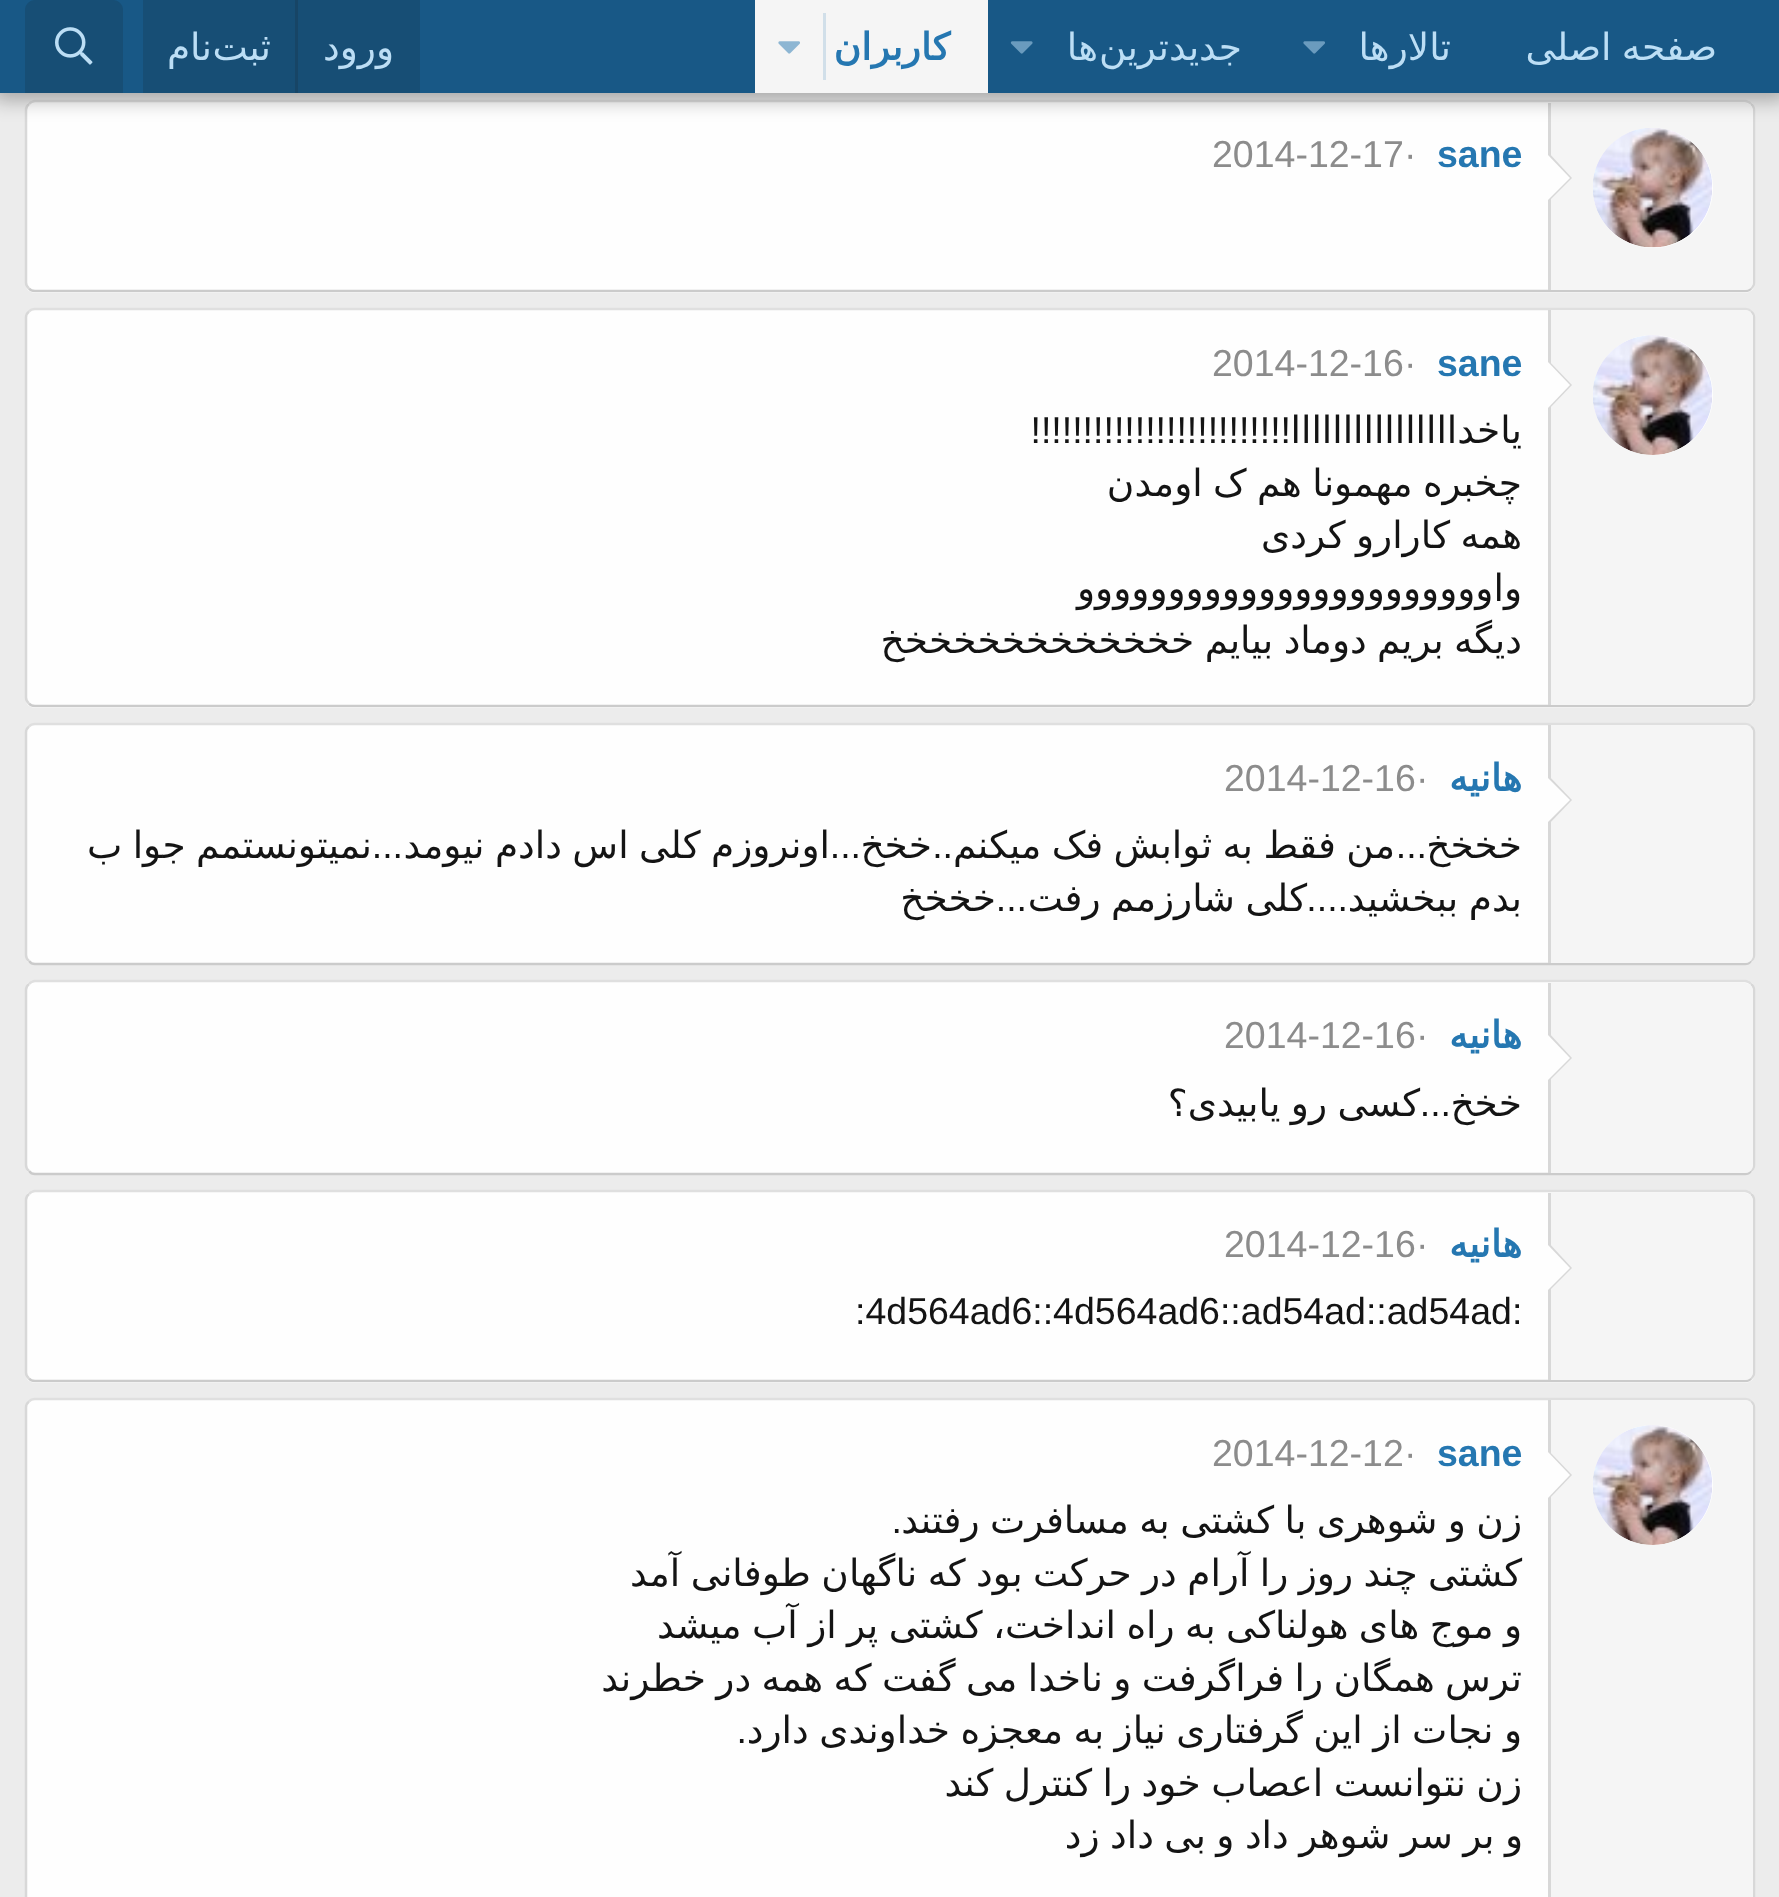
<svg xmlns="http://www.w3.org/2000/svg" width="1779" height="1897">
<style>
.a{font:37.5px DejaVu Sans;direction:rtl;fill:#bcdef5}
.b{font:bold 37.5px DejaVu Sans;direction:rtl;fill:#2577b1}
.c{font:bold 37.5px Liberation Sans;fill:#2577b1}
.d{font:37.5px Liberation Sans;fill:#8c8c8c}
.e{font:37.5px DejaVu Sans;direction:rtl;fill:#141414}
.f{font:37.5px Liberation Sans;direction:rtl;fill:#141414}
.g{font:37.5px Liberation Sans;fill:#141414}
</style>
<rect width="100%" height="100%" fill="#ececec"/>
<rect fill="#fefefe" x="25" y="100" width="1730" height="193" rx="10"/>
<path fill="none" stroke="#dfdfdf" stroke-width="2.5" d="M29 104c1.5-2 3.5-3 6-3h1710c2.5 0 4.5 1 6 3"/>
<path fill="none" stroke="#d8d8d8" stroke-width="2.5" d="M1751 104c2 1.5 3 3.5 3 6v172.5c0 2.5-1 4.5-3 6"/>
<path fill="none" stroke="#cbcbcb" stroke-width="2.5" d="M1751 288.5c-1.5 2-3.5 2.5-6 2.5h-1710c-2.5 0-4.5-.5-6-2.5"/>
<path fill="none" stroke="#d8d8d8" stroke-width="2.5" d="M29 288.5c-2-1.5-3-3.5-3-6v-172.5c0-2.5 1-4.5 3-6"/>
<path fill="#f5f5f5" d="M1548 103h197c4.5 0 8 3.5 8 8v171c0 4.5-3.5 8-8 8h-197z"/>
<path fill="#d8d8d8" d="M1548 103h3v187H1548z"/>
<circle fill="#fefefe" cx="1653" cy="188" r="60"/>
<image href="5.png" x="1593" y="128" width="119" height="120"/>
<path fill="#0000004d" filter="blur(10px)" d="M-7 -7h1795v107H-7z"/>
<path fill="#185886" d="M0 0h1779v93H0z"/>
<image href="1.png" x="1303" y="41" width="22" height="13"/>
<image href="2.png" x="1010" y="41" width="23" height="13"/>
<path fill="#f5f5f5" d="M755 0h233v93H755z"/>
<path fill="#d1dfe9" d="M823 13h3v67H823z"/>
<image href="3.png" x="778" y="41" width="22" height="13"/>
<path fill="#174e75" d="M143 0h277v93H143z"/>
<path fill="#174566" d="M295 0h3v93H295z"/>
<path fill="#174e75" d="M35 0h78c5.5 0 10 4.5 10 10v83h-98v-83c0-5.5 4.5-10 10-10z"/>
<image href="4.png" x="55" y="27" width="38" height="38"/>
<path fill="#d8d8d8" d="M1548 202v-50l24 26z"/>
<path fill="#fefefe" d="M1548 200v-45l22 23z"/>
<rect fill="#fefefe" x="25" y="308" width="1730" height="400" rx="10"/>
<path fill="none" stroke="#dfdfdf" stroke-width="2.5" d="M29 311.5c1.5-2 3.5-2.5 6-2.5h1710c2.5 0 4.5 .5 6 2.5"/>
<path fill="none" stroke="#d8d8d8" stroke-width="2.5" d="M1751 311.5c2 1.5 3 3.5 3 6v380c0 2.5-1 4.5-3 6"/>
<path fill="none" stroke="#cbcbcb" stroke-width="2.5" d="M1751 703.5c-1.5 2-3.5 2.5-6 2.5h-1710c-2.5 0-4.5-.5-6-2.5"/>
<path fill="none" stroke="#d8d8d8" stroke-width="2.5" d="M29 703.5c-2-1.5-3-3.5-3-6v-380c0-2.5 1-4.5 3-6"/>
<path fill="#f5f5f5" d="M1548 310h197c4.5 0 8 3.5 8 8v379c0 4.5-3.5 8-8 8h-197z"/>
<path fill="#d8d8d8" d="M1548 310h3v395H1548z"/>
<circle fill="#fefefe" cx="1653" cy="395" r="60"/>
<image href="6.png" x="1593" y="335" width="119" height="120"/>
<path fill="#d8d8d8" d="M1548 410v-50l24 25z"/>
<path fill="#fefefe" d="M1548 408v-46l22 23z"/>
<rect fill="#fefefe" x="25" y="723" width="1730" height="242" rx="10"/>
<path fill="none" stroke="#dfdfdf" stroke-width="2.5" d="M29 726.5c1.5-2 3.5-2.5 6-2.5h1710c2.5 0 4.5 .5 6 2.5"/>
<path fill="none" stroke="#d8d8d8" stroke-width="2.5" d="M1751 726.5c2 1.5 3 3.5 3 6v222.5c0 2.5-1 4.5-3 6"/>
<path fill="none" stroke="#cbcbcb" stroke-width="2.5" d="M1751 961c-1.5 2-3.5 3-6 3h-1710c-2.5 0-4.5-1-6-3"/>
<path fill="none" stroke="#d8d8d8" stroke-width="2.5" d="M29 961c-2-1.5-3-3.5-3-6v-222.5c0-2.5 1-4.5 3-6"/>
<path fill="#f5f5f5" d="M1548 725h197c4.5 0 8 3.5 8 8v222c0 4.5-3.5 8-8 8h-197z"/>
<path fill="#d8d8d8" d="M1548 725h3v238H1548z"/>
<path fill="#d8d8d8" d="M1548 825v-50l24 25z"/>
<path fill="#fefefe" d="M1548 822v-44l22 22z"/>
<rect fill="#fefefe" x="25" y="980" width="1730" height="195" rx="10"/>
<path fill="none" stroke="#dfdfdf" stroke-width="2.5" d="M29 984c1.5-2 3.5-3 6-3h1710c2.5 0 4.5 1 6 3"/>
<path fill="none" stroke="#d8d8d8" stroke-width="2.5" d="M1751 984c2 1.5 3 3.5 3 6v175c0 2.5-1 4.5-3 6"/>
<path fill="none" stroke="#cbcbcb" stroke-width="2.5" d="M1751 1171c-1.5 2-3.5 3-6 3h-1710c-2.5 0-4.5-1-6-3"/>
<path fill="none" stroke="#d8d8d8" stroke-width="2.5" d="M29 1171c-2-1.5-3-3.5-3-6v-175c0-2.5 1-4.5 3-6"/>
<path fill="#f5f5f5" d="M1548 983h197c4.5 0 8 3.5 8 8v174c0 4.5-3.5 8-8 8h-197z"/>
<path fill="#d8d8d8" d="M1548 983h3v190H1548z"/>
<path fill="#d8d8d8" d="M1548 1082v-50l24 26z"/>
<path fill="#fefefe" d="M1548 1080v-45l22 23z"/>
<rect fill="#fefefe" x="25" y="1190" width="1730" height="193" rx="10"/>
<path fill="none" stroke="#dfdfdf" stroke-width="2.5" d="M29 1194c1.5-2 3.5-3 6-3h1710c2.5 0 4.5 1 6 3"/>
<path fill="none" stroke="#d8d8d8" stroke-width="2.5" d="M1751 1194c2 1.5 3 3.5 3 6v172.5c0 2.5-1 4.5-3 6"/>
<path fill="none" stroke="#cbcbcb" stroke-width="2.5" d="M1751 1378.5c-1.5 2-3.5 2.5-6 2.5h-1710c-2.5 0-4.5-.5-6-2.5"/>
<path fill="none" stroke="#d8d8d8" stroke-width="2.5" d="M29 1378.5c-2-1.5-3-3.5-3-6v-172.5c0-2.5 1-4.5 3-6"/>
<path fill="#f5f5f5" d="M1548 1193h197c4.5 0 8 3.5 8 8v171c0 4.5-3.5 8-8 8h-197z"/>
<path fill="#d8d8d8" d="M1548 1193h3v187H1548z"/>
<path fill="#d8d8d8" d="M1548 1292v-50l24 26z"/>
<path fill="#fefefe" d="M1548 1290v-45l22 23z"/>
<rect fill="#fefefe" x="25" y="1398" width="1730" height="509" rx="10"/>
<path fill="none" stroke="#dfdfdf" stroke-width="2.5" d="M29 1401.5c1.5-2 3.5-2.5 6-2.5h1710c2.5 0 4.5 .5 6 2.5"/>
<path fill="none" stroke="#d8d8d8" stroke-width="2.5" d="M1751 1401.5c2 1.5 3 3.5 3 6v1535c0 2.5-1 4.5-3 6"/>
<path fill="none" stroke="#d8d8d8" stroke-width="2.5" d="M29 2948.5c-2-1.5-3-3.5-3-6v-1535c0-2.5 1-4.5 3-6"/>
<path fill="#f5f5f5" d="M1548 1400h197c4.5 0 8 3.5 8 8v489c0 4.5-3.5 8-8 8h-197z"/>
<path fill="#d8d8d8" d="M1548 1400h3v497H1548z"/>
<circle fill="#fefefe" cx="1653" cy="1485" r="60"/>
<image href="7.png" x="1593" y="1425" width="119" height="120"/>
<path fill="#d8d8d8" d="M1548 1500v-50l24 25z"/>
<path fill="#fefefe" d="M1548 1498v-46l22 23z"/>
<text class="a" x="1717" y="60" word-spacing="-1.5">صفحه اصلی</text>
<text class="a" x="1451" y="60">تالارها</text>
<text class="a" x="1242" y="60">جدیدترین</text>
<text class="a" x="1098" y="60">ها</text>
<text class="b" x="950" y="60">کاربران</text>
<text class="a" x="394" y="60">ورود</text>
<text class="a" x="271" y="60">ثبت</text>
<text class="a" x="212" y="60">نام</text>
<text class="c" x="1437" y="167">sane</text>
<text class="d" x="1404" y="167">·</text>
<text class="d" x="1212" y="167">2014-12-17</text>
<text class="c" x="1437" y="376">sane</text>
<text class="d" x="1404" y="376">·</text>
<text class="d" x="1212" y="376">2014-12-16</text>
<text class="e" x="1522" y="443">یاخداااااااااااااااا</text>
<text class="f" x="1291" y="443">!!!!!!!!!!!!!!!!!!!!!!!!!</text>
<text class="e" x="1522" y="496" word-spacing="-1.5">چخبره مهمونا هم ک اومدن</text>
<text class="e" x="1522" y="548" word-spacing="-1.5">همه کارارو کردی</text>
<text class="e" x="1522" y="601">واووووووووووووووووووووووو</text>
<text class="e" x="1522" y="653" word-spacing="-1.5">دیگه بریم دوماد بیایم خخخخخخخخخخخخخ</text>
<text class="b" x="1522" y="791">هانیه</text>
<text class="d" x="1416" y="791">·</text>
<text class="d" x="1224" y="791">2014-12-16</text>
<text class="e" x="1522" y="858">خخخخ</text>
<text class="e" x="1395" y="858" word-spacing="-1.5">من فقط به ثوابش فک میکنم</text>
<text class="f" x="1427" y="858">...</text>
<text class="f" x="953" y="858">..</text>
<text class="e" x="932" y="858">خخخ</text>
<text class="f" x="861" y="858">...</text>
<text class="e" x="830" y="858" word-spacing="-1.5">اونروزم کلی اس دادم نیومد</text>
<text class="f" x="403" y="858">...</text>
<text class="e" x="372" y="858" word-spacing="-1.5">نمیتونستمم جوا ب</text>
<text class="e" x="1522" y="911" word-spacing="-1.5">بدم ببخشید</text>
<text class="f" x="1348" y="911">....</text>
<text class="e" x="1307" y="911" word-spacing="-1.5">کلی شارزمم رفت</text>
<text class="f" x="1027" y="911">...</text>
<text class="e" x="996" y="911">خخخخ</text>
<text class="b" x="1522" y="1048">هانیه</text>
<text class="d" x="1416" y="1048">·</text>
<text class="d" x="1224" y="1048">2014-12-16</text>
<text class="e" x="1522" y="1116">خخخ</text>
<text class="f" x="1451" y="1116">...</text>
<text class="e" x="1420" y="1116" word-spacing="-1.5">کسی رو یابیدی؟</text>
<text class="b" x="1522" y="1257">هانیه</text>
<text class="d" x="1416" y="1257">·</text>
<text class="d" x="1224" y="1257">2014-12-16</text>
<text class="g" x="855" y="1324">:4d564ad6::4d564ad6::ad54ad::ad54ad:</text>
<text class="c" x="1437" y="1466">sane</text>
<text class="d" x="1404" y="1466">·</text>
<text class="d" x="1212" y="1466">2014-12-12</text>
<text class="e" x="1522" y="1533" word-spacing="-1.5">زن و شوهری با کشتی به مسافرت رفتند</text>
<text class="f" x="902" y="1533">.</text>
<text class="e" x="1522" y="1586" word-spacing="-1.5">کشتی چند روز را آرام در حرکت بود که ناگهان طوفانی آمد</text>
<text class="e" x="1522" y="1638" word-spacing="-1.5">و موج های هولناکی به راه انداخت، کشتی پر از آب میشد</text>
<text class="e" x="1522" y="1691" word-spacing="-1.5">ترس همگان را فراگرفت و ناخدا می گفت که همه در خطرند</text>
<text class="e" x="1522" y="1743" word-spacing="-1.5">و نجات از این گرفتاری نیاز به معجزه خداوندی دارد</text>
<text class="f" x="747" y="1743">.</text>
<text class="e" x="1522" y="1796" word-spacing="-1.5">زن نتوانست اعصاب خود را کنترل کند</text>
<text class="e" x="1523" y="1848" word-spacing="-1.5">و بر سر شوهر داد و بی داد زد</text>
</svg>
